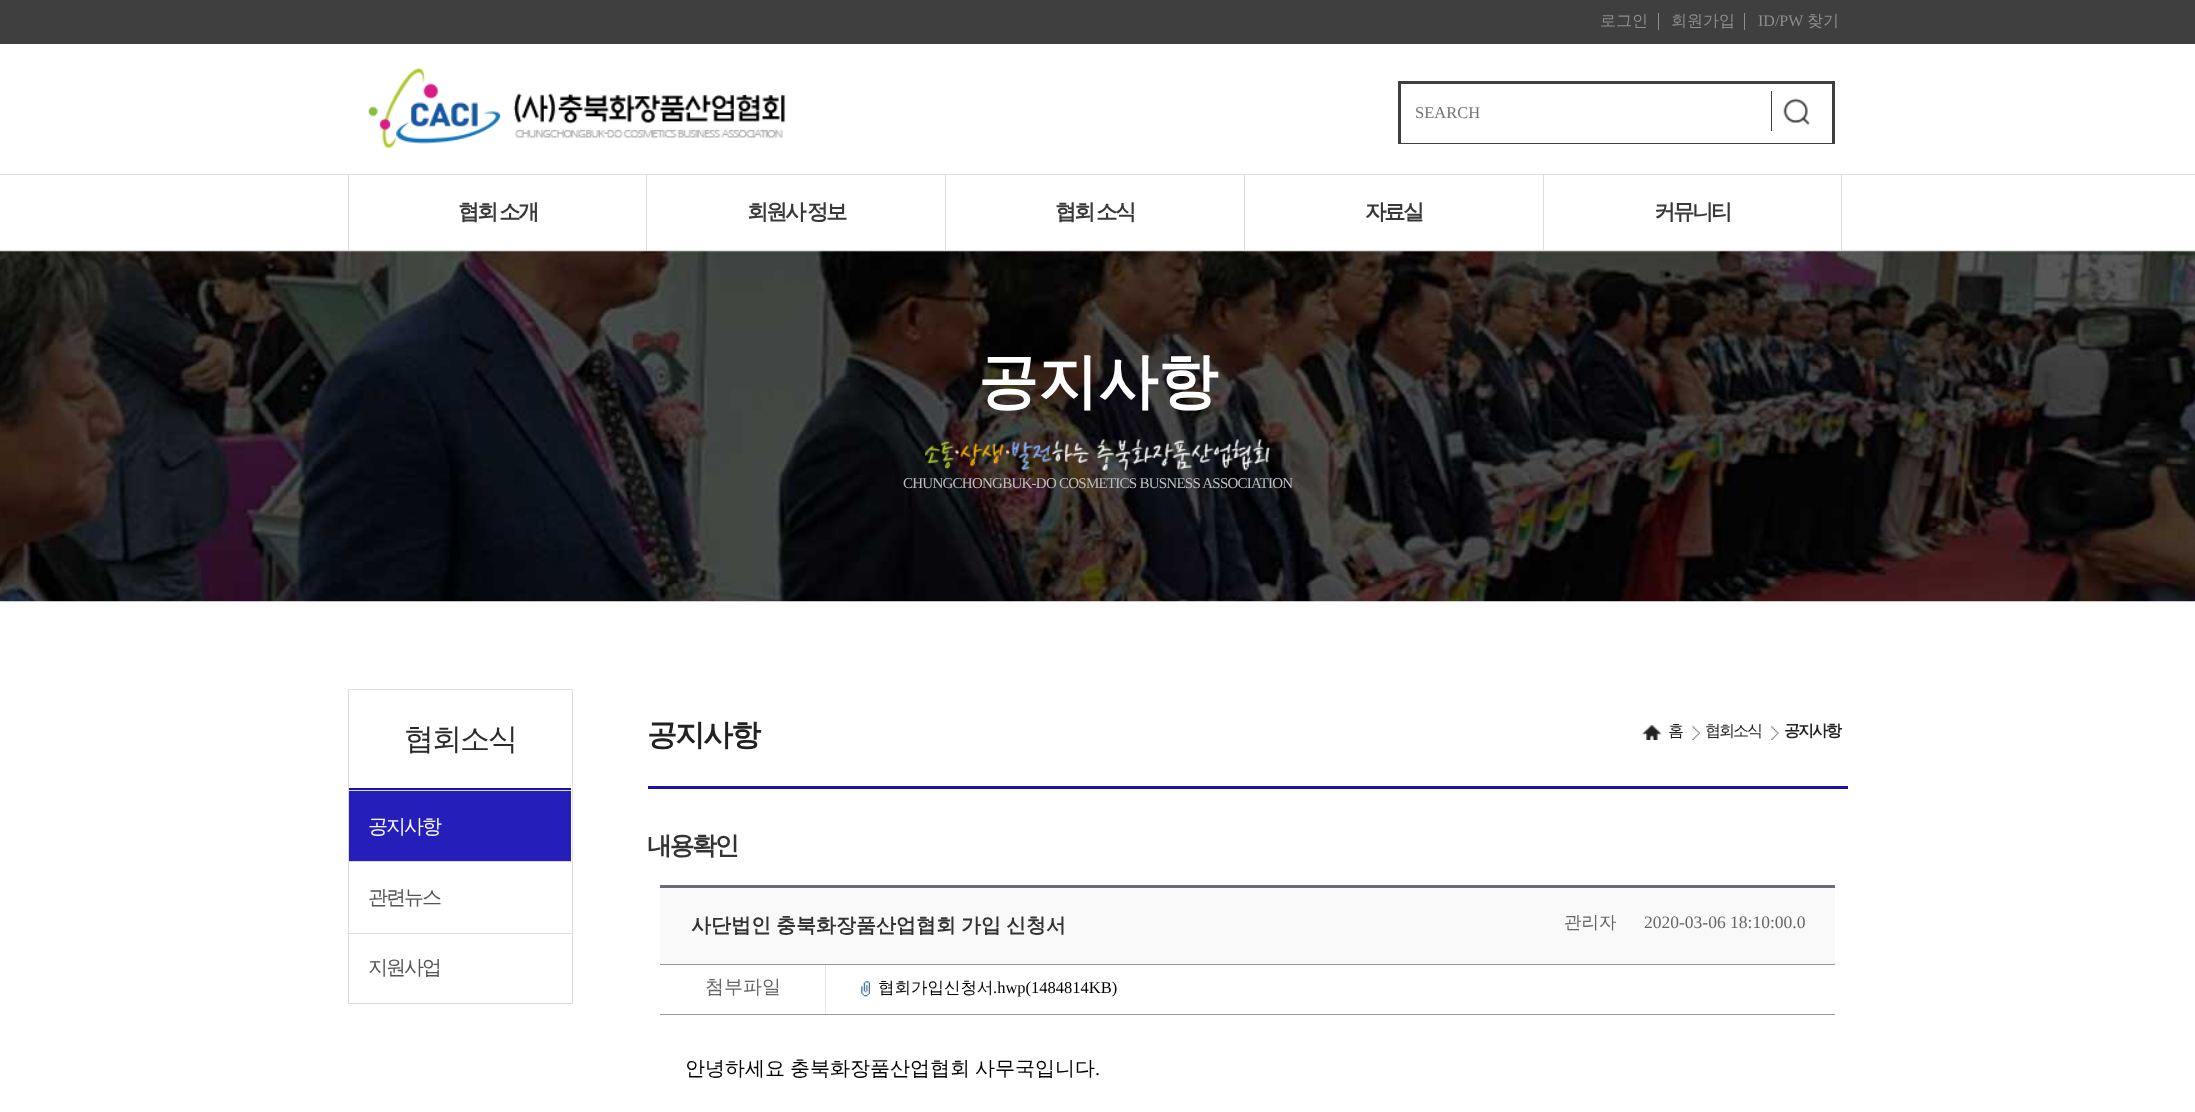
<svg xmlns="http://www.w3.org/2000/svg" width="2195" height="1112">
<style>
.a{font:500 16px WenQuanYi Zen Hei;fill:#8d8d8d}
.b{font:16px Liberation Serif;fill:#8d8d8d}
.c{font:16.5px Liberation Serif;fill:#757575}
.d{font:bold 21.5px WenQuanYi Zen Hei;letter-spacing:-2.5px;fill:#393939}
.e{font:bold 60px WenQuanYi Zen Hei;fill:#fff}
.f{font:15px Liberation Serif;letter-spacing:-0.75px;fill:#bebebe}
.g{font:500 30px WenQuanYi Zen Hei;letter-spacing:-2px;fill:#2a2a2a}
.h{font:500 20px WenQuanYi Zen Hei;letter-spacing:-2px;fill:#fff}
.i{font:500 20px WenQuanYi Zen Hei;letter-spacing:-2px;fill:#555}
.j{font:bold 30px WenQuanYi Zen Hei;letter-spacing:-2px;fill:#212121}
.k{font:500 16px WenQuanYi Zen Hei;letter-spacing:-2px;fill:#212121}
.l{font:bold 16px WenQuanYi Zen Hei;letter-spacing:-2px;fill:#212121}
.m{font:bold 25px WenQuanYi Zen Hei;letter-spacing:-2.5px;fill:#333}
.n{font:bold 20px WenQuanYi Zen Hei;fill:#333}
.o{font:500 17.5px WenQuanYi Zen Hei;fill:#666}
.p{font:17.5px Liberation Serif;fill:#666}
.q{font:500 19px WenQuanYi Zen Hei;fill:#666}
.r{font:500 16.5px WenQuanYi Zen Hei;fill:#000}
.s{font:16.5px Liberation Serif;fill:#000}
.t{font:500 20px WenQuanYi Zen Hei;fill:#000}
.u{font:20px Liberation Serif;fill:#000}
</style>
<defs>
<clipPath id="clip1"><path d="M1348 81h487v63H1348z"/></clipPath>
</defs>
<rect width="100%" height="100%" fill="#fff"/>
<path fill="#3f3f3f" d="M0 0h2195v44H0z"/>
<path fill="#8d8d8d" d="M1658 13h1v17H1658z"/>
<path fill="#8d8d8d" d="M1744 13h1v17H1744z"/>
<image href="1.png" x="368" y="68" width="418" height="80"/>
<g clip-path="url(#clip1)">
<path fill="none" stroke="#3f3f3f" stroke-width="3" d="M1399.5 82.5h434v62H1399.5z"/>
</g>
<image href="2.png" x="1783" y="98" width="27" height="28"/>
<path fill="#3f3f3f" d="M1771 91h1v40H1771z"/>
<path fill="#ddd" d="M0 174h2195v1H0z"/>
<path fill="#ddd" d="M0 250h2195v1H0z"/>
<path fill="#ddd" d="M646 175h1v75H646z"/>
<path fill="#ddd" d="M348 175h1v75H348z"/>
<path fill="#ddd" d="M945 175h1v75H945z"/>
<path fill="#ddd" d="M1244 175h1v75H1244z"/>
<path fill="#ddd" d="M1543 175h1v75H1543z"/>
<path fill="#ddd" d="M1841 175h1v75H1841z"/>
<image href="3.png" x="0" y="251" width="2195" height="351"/>
<image href="4.png" x="925" y="439" width="345" height="33"/>
<path fill="none" stroke="#ddd" d="M348.5 689.5h224v314H348.5z"/>
<path fill="#1912a6" d="M349 788h222v2H349z"/>
<path fill="#251ebb" d="M349 791h222v70H349z"/>
<path fill="#ddd" d="M349 790h222v1H349z"/>
<path fill="#ddd" d="M349 861h222v1H349z"/>
<path fill="#ddd" d="M349 933h222v1H349z"/>
<path fill="#1912a6" d="M648 786h1200v3H648z"/>
<image href="5.png" x="1642" y="725" width="20" height="15"/>
<image href="6.png" x="1692" y="726" width="8" height="14"/>
<image href="7.png" x="1771" y="726" width="8" height="14"/>
<path fill="#696c75" d="M660 885h1175v3H660z"/>
<path fill="#f9f9f9" d="M660 888h1175v76H660z"/>
<path fill="#999" d="M660 964h1175v1H660z"/>
<path fill="#999" d="M660 1014h1175v1H660z"/>
<path fill="#e6e6e6" d="M825 965h1v49H825z"/>
<image href="8.png" x="861" y="981" width="9" height="16"/>
<text class="a" x="1600" y="26">로그인</text>
<text class="a" x="1671" y="26">회원가입</text>
<text class="b" x="1758" y="26">ID/PW</text>
<text class="a" x="1807" y="26">찾기</text>
<text class="c" x="1415" y="118">SEARCH</text>
<text class="d" x="458" y="219" word-spacing="-1">협회 소개</text>
<text class="d" x="747" y="219" word-spacing="-1">회원사 정보</text>
<text class="d" x="1055" y="219" word-spacing="-1">협회 소식</text>
<text class="d" x="1365" y="219">자료실</text>
<text class="d" x="1654" y="219">커뮤니티</text>
<text class="e" x="978" y="402">공지사항</text>
<text class="f" x="903" y="488">CHUNGCHONGBUK-DO COSMETICS BUSNESS ASSOCIATION</text>
<text class="g" x="404" y="749">협회소식</text>
<text class="h" x="368" y="833">공지사항</text>
<text class="i" x="368" y="904">관련뉴스</text>
<text class="i" x="368" y="974">지원사업</text>
<text class="j" x="647" y="745">공지사항</text>
<text class="k" x="1668" y="736">홈</text>
<text class="k" x="1705" y="736">협회소식</text>
<text class="l" x="1784" y="736">공지사항</text>
<text class="m" x="647" y="854">내용확인</text>
<text class="n" x="691" y="932" word-spacing="-1">사단법인 충북화장품산업협회 가입 신청서</text>
<text class="o" x="1564" y="928">관리자</text>
<text class="p" x="1644" y="928">2020-03-06 18:10:00.0</text>
<text class="q" x="705" y="993">첨부파일</text>
<text class="r" x="878" y="993">협회가입신청서</text>
<text class="s" x="993" y="993">.hwp(1484814KB)</text>
<text class="t" x="685" y="1075" word-spacing="-1">안녕하세요 충북화장품산업협회 사무국입니다</text>
<text class="u" x="1095" y="1075">.</text>
</svg>
